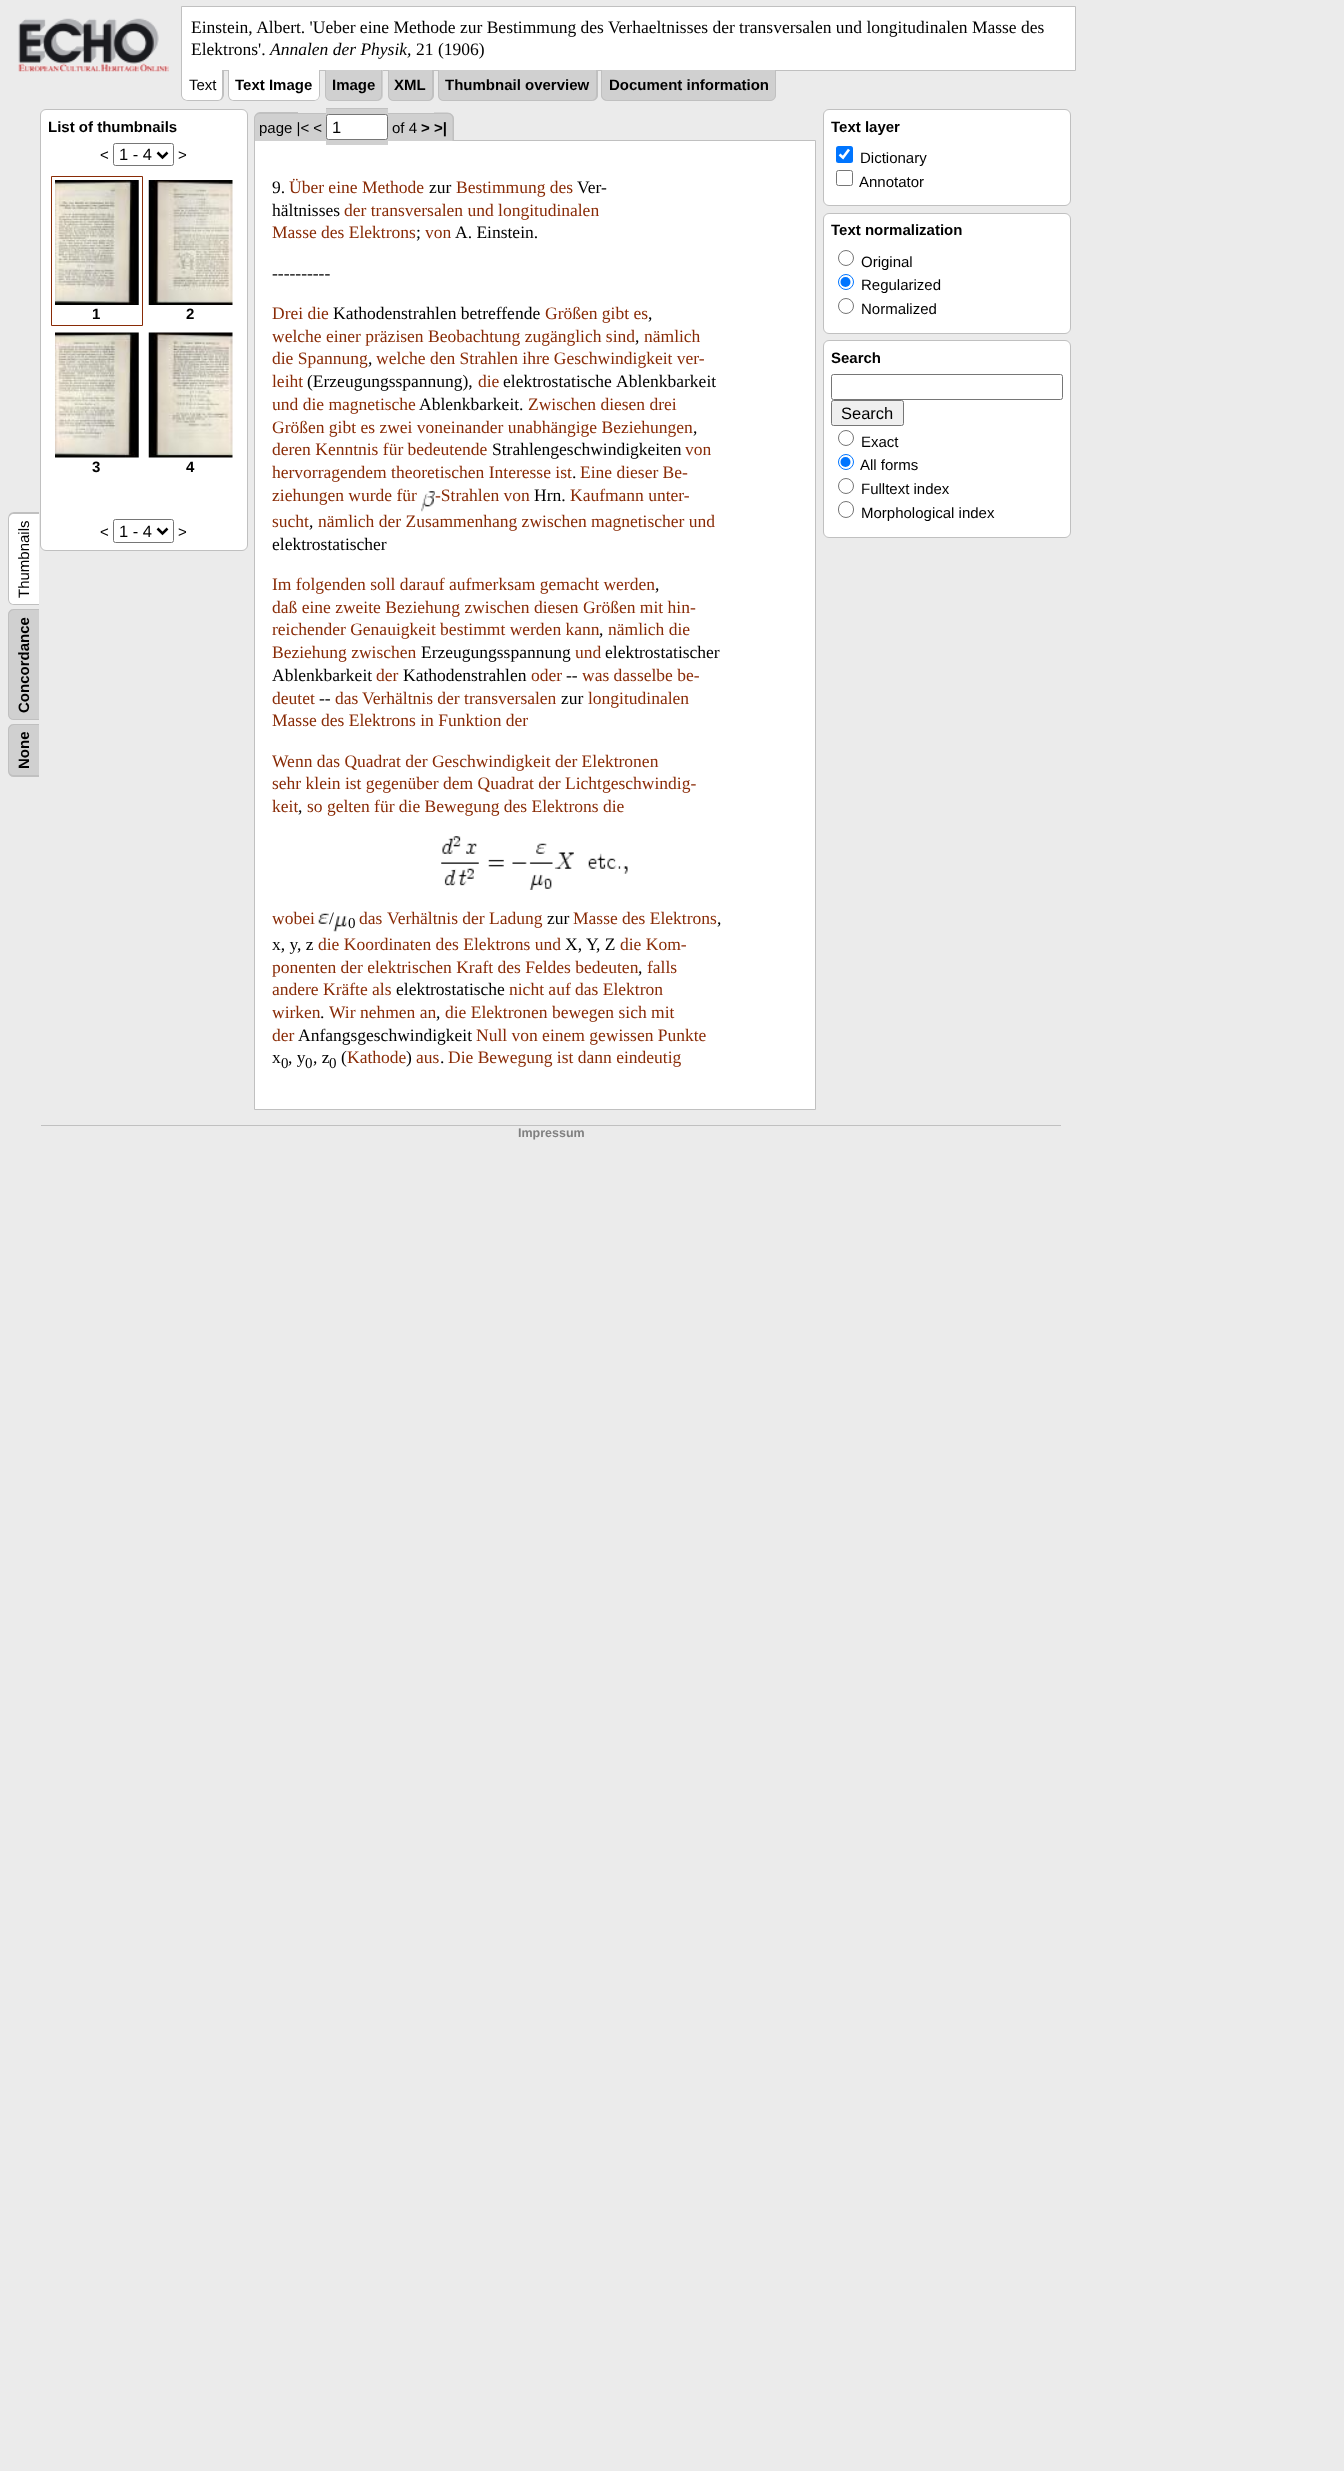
<svg xmlns="http://www.w3.org/2000/svg" width="1344" height="2471">
<style>
.a{font:17.5px Liberation Serif;fill:#000}
.b{font:italic 17.5px Liberation Serif;fill:#000}
.c{font:15px Liberation Sans;fill:#000}
.d{font:bold 15px Liberation Sans;fill:#000}
.e{font:16.5px Liberation Sans;fill:#000}
.f{font:17.5px Liberation Serif;fill:#892b06}
.g{font:15px Liberation Serif;fill:#000}
.h{font:bold 12.5px Liberation Sans;fill:#808080}
</style>
<rect width="100%" height="100%" fill="#ebebeb"/>
<image href="1.png" x="18" y="18" width="151" height="54"/>
<path fill="#fff" stroke="#c0c0c0" d="M181.5 6.5h894v64H181.5z"/>
<path fill="#fff" d="M181 70h43v25c0 3.5-2.5 6-6 6h-31c-3.5 0-6-2.5-6-6z"/>
<path fill="#c0c0c0" fill-rule="evenodd" d="M181 70h43v25c0 3-3 6-6 6h-30c-4 0-7-3-7-6zm1 0h40v25c0 3-2 5-4 5h-30c-3 0-6-2-6-5z"/>
<path fill="#fff" d="M228 70h92v25c0 3.5-2.5 6-6 6h-80c-3.5 0-6-2.5-6-6z"/>
<path fill="#c0c0c0" fill-rule="evenodd" d="M228 70h92v25c0 3-3 6-6 6h-80c-4 0-6-3-6-6zm1 0h90v25c0 3-2 5-5 5h-80c-3 0-5-2-5-5z"/>
<path fill="#d0d0d0" d="M325 70h58v25c0 3.5-2.5 6-6 6h-46c-3.5 0-6-2.5-6-6z"/>
<path fill="#c0c0c0" fill-rule="evenodd" d="M325 70h57v25c0 3-2 6-6 6h-45c-3 0-6-3-6-6zm1 0h55v25c0 3-2 5-5 5h-45c-3 0-5-2-5-5z"/>
<path fill="#d0d0d0" d="M388 70h46v25c0 3.5-2.5 6-6 6h-34c-3.5 0-6-2.5-6-6z"/>
<path fill="#c0c0c0" fill-rule="evenodd" d="M388 70h46v25c0 3-3 6-6 6h-34c-4 0-6-3-6-6zm1 0h43v25c0 3-2 5-4 5h-34c-3 0-5-2-5-5z"/>
<path fill="#d0d0d0" d="M438 70h160v25c0 3.5-2.5 6-6 6h-148c-3.5 0-6-2.5-6-6z"/>
<path fill="#c0c0c0" fill-rule="evenodd" d="M438 70h160v25c0 3-3 6-7 6h-147c-4 0-6-3-6-6zm1 0h157v25c0 3-2 5-5 5h-147c-3 0-5-2-5-5z"/>
<path fill="#d0d0d0" d="M601 70h175v25c0 3.5-2.5 6-6 6h-163c-3.5 0-6-2.5-6-6z"/>
<path fill="#c0c0c0" fill-rule="evenodd" d="M601 70h175v25c0 3-3 6-6 6h-162c-4 0-7-3-7-6zm1 0h173v25c0 3-2 5-5 5h-162c-3 0-6-2-6-5z"/>
<rect fill="#fff" stroke="#c0c0c0" x="40.5" y="109.5" width="207" height="441" rx="5.5"/>
<rect fill="none" stroke="#767676" x="113.5" y="143.5" width="60" height="22" rx="2"/>
<path fill="none" stroke="#000" stroke-width="2.5" d="M157.5 152.5l5 5l5-5"/>
<path fill="none" stroke="#892b06" d="M51.5 176.5h91v149H51.5z"/>
<image href="2.png" x="55" y="180" width="84" height="125"/>
<image href="3.png" x="148" y="180" width="85" height="125"/>
<image href="4.png" x="55" y="332" width="84" height="126"/>
<image href="5.png" x="148" y="332" width="85" height="126"/>
<rect fill="none" stroke="#767676" x="113.5" y="519.5" width="60" height="23" rx="2"/>
<path fill="none" stroke="#000" stroke-width="2.5" d="M157.5 528.5l5 5l5-5"/>
<path fill="#fff" d="M8 599v-80c0-4 2-7 6-7h25v93h-25c-4 0-6-3-6-6z"/>
<path fill="#c0c0c0" fill-rule="evenodd" d="M8 599v-80c0-4 2-7 6-7h25v93h-25c-4 0-6-3-6-6zm1 0v-80c0-3 2-5 5-5h25v90h-25c-3 0-5-2-5-5z"/>
<path fill="#d0d0d0" d="M8 714v-99c0-3 2-6 6-6h25v111h-25c-4 0-6-3-6-6z"/>
<path fill="#c0c0c0" fill-rule="evenodd" d="M8 714v-99c0-3 2-6 6-6h25v111h-25c-4 0-6-3-6-6zm1 0v-99c0-2 2-5 5-5h25v109h-25c-3 0-5-2-5-5z"/>
<path fill="#d0d0d0" d="M8 770v-40c0-3 2-6 6-6h25v53h-25c-4 0-6-3-6-7z"/>
<path fill="#c0c0c0" fill-rule="evenodd" d="M8 770v-40c0-3 2-6 6-6h25v53h-25c-4 0-6-3-6-7zm1 0v-40c0-2 2-5 5-5h25v50h-25c-3 0-5-2-5-5z"/>
<path fill="#fff" stroke="#c0c0c0" d="M254.5 140.5h561v969H254.5z"/>
<path fill="#d0d0d0" d="M260 113h38v28h-44v-22c0-3.5 2.5-6 6-6z"/>
<path fill="#c0c0c0" fill-rule="evenodd" d="M260 112h38v29h-44v-22c0-4 3-7 6-7zm0 2h38v27h-43v-22c0-3 2-5 5-5z"/>
<path fill="#d0d0d0" d="M298 114h12v27H298z"/>
<path fill="#c0c0c0" d="M298 113h12v1H298z"/>
<path fill="#d0d0d0" d="M310 113h4v28H310z"/>
<path fill="#c0c0c0" d="M310 113h13v1H310z"/>
<path fill="#d0d0d0" d="M314 114h9v27H314z"/>
<path fill="#d0d0d0" d="M323 113h3v28H323z"/>
<path fill="#c0c0c0" d="M323 113h4v1H323z"/>
<path fill="#d0d0d0" d="M326 109h62v36H326z"/>
<path fill="#c0c0c0" d="M326 108h62v1H326z"/>
<path fill="#d0d0d0" d="M388 113h5v28H388z"/>
<path fill="#c0c0c0" d="M388 113h42v1H388z"/>
<path fill="#d0d0d0" d="M393 114h37v27H393z"/>
<path fill="#d0d0d0" d="M430 113h4v28H430z"/>
<path fill="#c0c0c0" d="M430 113h4v1H430z"/>
<path fill="#d0d0d0" d="M434 113h14c3.5 0 6 2.5 6 6v22h-20z"/>
<path fill="#c0c0c0" fill-rule="evenodd" d="M434 112.5h13.5c3.5 0 6.5 3 6.5 6.5v22h-20zm0 1.5h13.5c3 0 5 2 5 5v22h-18.5z"/>
<rect fill="#fff" stroke="#767676" x="326.5" y="114.5" width="61" height="25" rx="2"/>
<image href="6.png" x="421" y="491" width="14" height="21"/>
<image href="7.png" x="441" y="836" width="187" height="54"/>
<image href="8.png" x="318" y="913" width="11" height="11"/>
<rect fill="#fff" stroke="#c0c0c0" x="823.5" y="109.5" width="247" height="96" rx="5.5"/>
<rect fill="#0075ff" x="836" y="146" width="17" height="17" rx="2.5"/>
<path fill="none" stroke="#fff" stroke-width="2.6" d="M839.5 154.5l3.5 3l6-8"/>
<rect fill="none" stroke="#767676" x="836.5" y="170.5" width="16" height="15" rx="2"/>
<rect fill="#fff" stroke="#c0c0c0" x="823.5" y="213.5" width="247" height="120" rx="5.5"/>
<circle fill="none" stroke="#767676" cx="846" cy="258" r="7.5"/>
<circle fill="none" stroke="#0075ff" cx="846" cy="282" r="7.5"/>
<circle fill="#0075ff" cx="845.5" cy="282" r="5"/>
<circle fill="none" stroke="#767676" cx="846" cy="306" r="7.5"/>
<rect fill="#fff" stroke="#c0c0c0" x="823.5" y="340.5" width="247" height="197" rx="5.5"/>
<rect fill="none" stroke="#767676" x="831.5" y="374.5" width="231" height="25" rx="2"/>
<rect fill="#efefef" stroke="#767676" x="831.5" y="400.5" width="72" height="25" rx="2"/>
<circle fill="none" stroke="#767676" cx="846" cy="438" r="7.5"/>
<circle fill="none" stroke="#0075ff" cx="846" cy="462" r="7.5"/>
<circle fill="#0075ff" cx="845.5" cy="462" r="5"/>
<circle fill="none" stroke="#767676" cx="846" cy="486" r="7.5"/>
<rect fill="none" stroke="#767676" x="838.5" y="501.5" width="15" height="16" rx="7.5"/>
<path fill="#c0c0c0" d="M41 1125h1020v1H41z"/>
<text class="a" x="191" y="33">Einstein, Albert. 'Ueber eine Methode zur Bestimmung des Verhaeltnisses der transversalen und longitudinalen Masse des</text>
<text class="a" x="191" y="55">Elektrons'.</text>
<text class="b" x="270" y="55">Annalen der Physik,</text>
<text class="a" x="416" y="55">21 (1906)</text>
<text class="c" x="189" y="90">Text</text>
<text class="d" x="235" y="90">Text Image</text>
<text class="d" x="332" y="90">Image</text>
<text class="d" x="394" y="90">XML</text>
<text class="d" x="445" y="90">Thumbnail overview</text>
<text class="d" x="609" y="90">Document information</text>
<text class="d" x="48" y="132">List of thumbnails</text>
<text class="c" x="100" y="160">&lt;</text>
<text class="e" x="119" y="160">1 - 4</text>
<text class="c" x="178" y="160">&gt;</text>
<text class="d" x="92" y="319">1</text>
<text class="d" x="186" y="319">2</text>
<text class="d" x="92" y="472">3</text>
<text class="d" x="186" y="472">4</text>
<text class="c" x="100" y="537">&lt;</text>
<text class="e" x="119" y="537">1 - 4</text>
<text class="c" x="178" y="537">&gt;</text>
<text class="c" x="29" y="598" transform="rotate(-90 29 598)">Thumbnails</text>
<text class="d" x="29" y="713" transform="rotate(-90 29 713)">Concordance</text>
<text class="d" x="29" y="769" transform="rotate(-90 29 769)">None</text>
<text class="c" x="259" y="133">page |&lt; &lt;</text>
<text class="e" x="332" y="133">1</text>
<text class="c" x="392" y="133">of 4</text>
<text class="d" x="421" y="133">&gt; &gt;|</text>
<text class="a" x="272" y="193">9.</text>
<text class="f" x="289" y="193">Über eine Methode</text>
<text class="a" x="429" y="193">zur</text>
<text class="f" x="456" y="193">Bestimmung des</text>
<text class="a" x="577" y="193">Ver-</text>
<text class="a" x="272" y="216">hältnisses</text>
<text class="f" x="344" y="216">der transversalen und longitudinalen</text>
<text class="f" x="272" y="238">Masse des Elektrons</text>
<text class="a" x="416" y="238">;</text>
<text class="f" x="425" y="238">von</text>
<text class="a" x="455" y="238">A. Einstein.</text>
<text class="a" x="272" y="279">----------</text>
<text class="f" x="272" y="319">Drei die</text>
<text class="a" x="333" y="319">Kathodenstrahlen betreffende</text>
<text class="f" x="545" y="319">Größen gibt es</text>
<text class="a" x="648" y="319">,</text>
<text class="f" x="272" y="342">welche einer präzisen Beobachtung zugänglich sind</text>
<text class="a" x="635" y="342">,</text>
<text class="f" x="644" y="342">nämlich</text>
<text class="f" x="272" y="364">die Spannung</text>
<text class="a" x="368" y="364">,</text>
<text class="f" x="376" y="364">welche den Strahlen ihre Geschwindigkeit ver-</text>
<text class="f" x="272" y="387">leiht</text>
<text class="a" x="307" y="387">(Erzeugungsspannung),</text>
<text class="f" x="478" y="387">die</text>
<text class="a" x="503" y="387">elektrostatische</text>
<text class="a" x="616" y="387">Ablenkbarkeit</text>
<text class="f" x="272" y="410">und die magnetische</text>
<text class="a" x="419" y="410">Ablenkbarkeit.</text>
<text class="f" x="528" y="410">Zwischen diesen drei</text>
<text class="f" x="272" y="433">Größen gibt es zwei voneinander unabhängige Beziehungen</text>
<text class="a" x="693" y="433">,</text>
<text class="f" x="272" y="455">deren Kenntnis für bedeutende</text>
<text class="a" x="492" y="455">Strahlengeschwindigkeiten</text>
<text class="f" x="685" y="455">von</text>
<text class="f" x="272" y="478">hervorragendem theoretischen Interesse ist</text>
<text class="a" x="572" y="478">.</text>
<text class="f" x="580" y="478">Eine dieser Be-</text>
<text class="f" x="272" y="501">ziehungen wurde für</text>
<text class="f" x="435" y="501">-Strahlen von</text>
<text class="a" x="534" y="501">Hrn.</text>
<text class="f" x="570" y="501">Kaufmann unter-</text>
<text class="f" x="272" y="527">sucht</text>
<text class="a" x="309" y="527">,</text>
<text class="f" x="318" y="527">nämlich der Zusammenhang zwischen magnetischer und</text>
<text class="a" x="272" y="550">elektrostatischer</text>
<text class="f" x="272" y="590">Im folgenden soll darauf aufmerksam gemacht werden</text>
<text class="a" x="655" y="590">,</text>
<text class="f" x="272" y="613">daß eine zweite Beziehung zwischen diesen Größen mit hin-</text>
<text class="f" x="272" y="635">reichender Genauigkeit bestimmt werden kann</text>
<text class="a" x="599" y="635">,</text>
<text class="f" x="608" y="635">nämlich die</text>
<text class="f" x="272" y="658">Beziehung zwischen</text>
<text class="a" x="421" y="658">Erzeugungsspannung</text>
<text class="f" x="575" y="658">und</text>
<text class="a" x="605" y="658">elektrostatischer</text>
<text class="a" x="272" y="681">Ablenkbarkeit</text>
<text class="f" x="376" y="681">der</text>
<text class="a" x="403" y="681">Kathodenstrahlen</text>
<text class="f" x="531" y="681">oder</text>
<text class="a" x="566" y="681">--</text>
<text class="f" x="582" y="681">was dasselbe be-</text>
<text class="f" x="272" y="704">deutet</text>
<text class="a" x="319" y="704">--</text>
<text class="f" x="335" y="704">das</text>
<text class="f" x="362" y="704">Verhältnis der transversalen</text>
<text class="a" x="561" y="704">zur</text>
<text class="f" x="588" y="704">longitudinalen</text>
<text class="f" x="272" y="726">Masse des Elektrons in Funktion der</text>
<text class="f" x="272" y="767">Wenn das Quadrat der Geschwindigkeit der Elektronen</text>
<text class="f" x="272" y="789">sehr klein ist gegenüber dem Quadrat der Lichtgeschwindig-</text>
<text class="f" x="272" y="812">keit</text>
<text class="a" x="298" y="812">,</text>
<text class="f" x="307" y="812">so gelten für die Bewegung des Elektrons die</text>
<text class="f" x="272" y="924">wobei</text>
<text class="a" x="329" y="924">/</text>
<image href="9.png" x="333" y="916" width="15" height="16"/>
<text class="g" x="348" y="928">0</text>
<text class="f" x="359" y="924">das</text>
<text class="f" x="387" y="924">Verhältnis der Ladung</text>
<text class="a" x="547" y="924">zur</text>
<text class="f" x="573" y="924">Masse des Elektrons</text>
<text class="a" x="717" y="924">,</text>
<text class="a" x="272" y="950">x, y</text>
<text class="a" x="297" y="950">, z</text>
<text class="f" x="318" y="950">die Koordinaten des Elektrons und</text>
<text class="a" x="565" y="950">X,</text>
<text class="a" x="586" y="950">Y</text>
<text class="a" x="596" y="950">, Z</text>
<text class="f" x="620" y="950">die Kom-</text>
<text class="f" x="272" y="973">ponenten der elektrischen Kraft des Feldes bedeuten</text>
<text class="a" x="638" y="973">,</text>
<text class="f" x="647" y="973">falls</text>
<text class="f" x="272" y="995">andere Kräfte als</text>
<text class="a" x="396" y="995">elektrostatische</text>
<text class="f" x="509" y="995">nicht auf das Elektron</text>
<text class="f" x="272" y="1018">wirken</text>
<text class="a" x="320" y="1018">.</text>
<text class="f" x="329" y="1018">Wir nehmen an</text>
<text class="a" x="436" y="1018">,</text>
<text class="f" x="445" y="1018">die Elektronen bewegen sich mit</text>
<text class="f" x="272" y="1041">der</text>
<text class="a" x="298" y="1041">Anfangsgeschwindigkeit</text>
<text class="f" x="476" y="1041">Null von einem gewissen Punkte</text>
<text class="a" x="272" y="1063">x</text>
<text class="g" x="281" y="1068">0</text>
<text class="a" x="288" y="1063">, y</text>
<text class="g" x="305" y="1068">0</text>
<text class="a" x="313" y="1063">, z</text>
<text class="g" x="329" y="1068">0</text>
<text class="a" x="341" y="1063">(</text>
<text class="f" x="347" y="1063">Kathode</text>
<text class="a" x="406" y="1063">)</text>
<text class="f" x="416" y="1063">aus</text>
<text class="a" x="440" y="1063">.</text>
<text class="f" x="448" y="1063">Die Bewegung ist dann eindeutig</text>
<text class="d" x="831" y="132">Text layer</text>
<text class="c" x="860" y="163">Dictionary</text>
<text class="c" x="859" y="187">Annotator</text>
<text class="d" x="831" y="235">Text normalization</text>
<text class="c" x="861" y="267">Original</text>
<text class="c" x="861" y="290">Regularized</text>
<text class="c" x="861" y="314">Normalized</text>
<text class="d" x="831" y="363">Search</text>
<text class="e" x="841" y="419">Search</text>
<text class="c" x="861" y="447">Exact</text>
<text class="c" x="860" y="470">All forms</text>
<text class="c" x="861" y="494">Fulltext index</text>
<text class="c" x="861" y="518">Morphological index</text>
<text class="h" x="518" y="1137">Impressum</text>
</svg>
